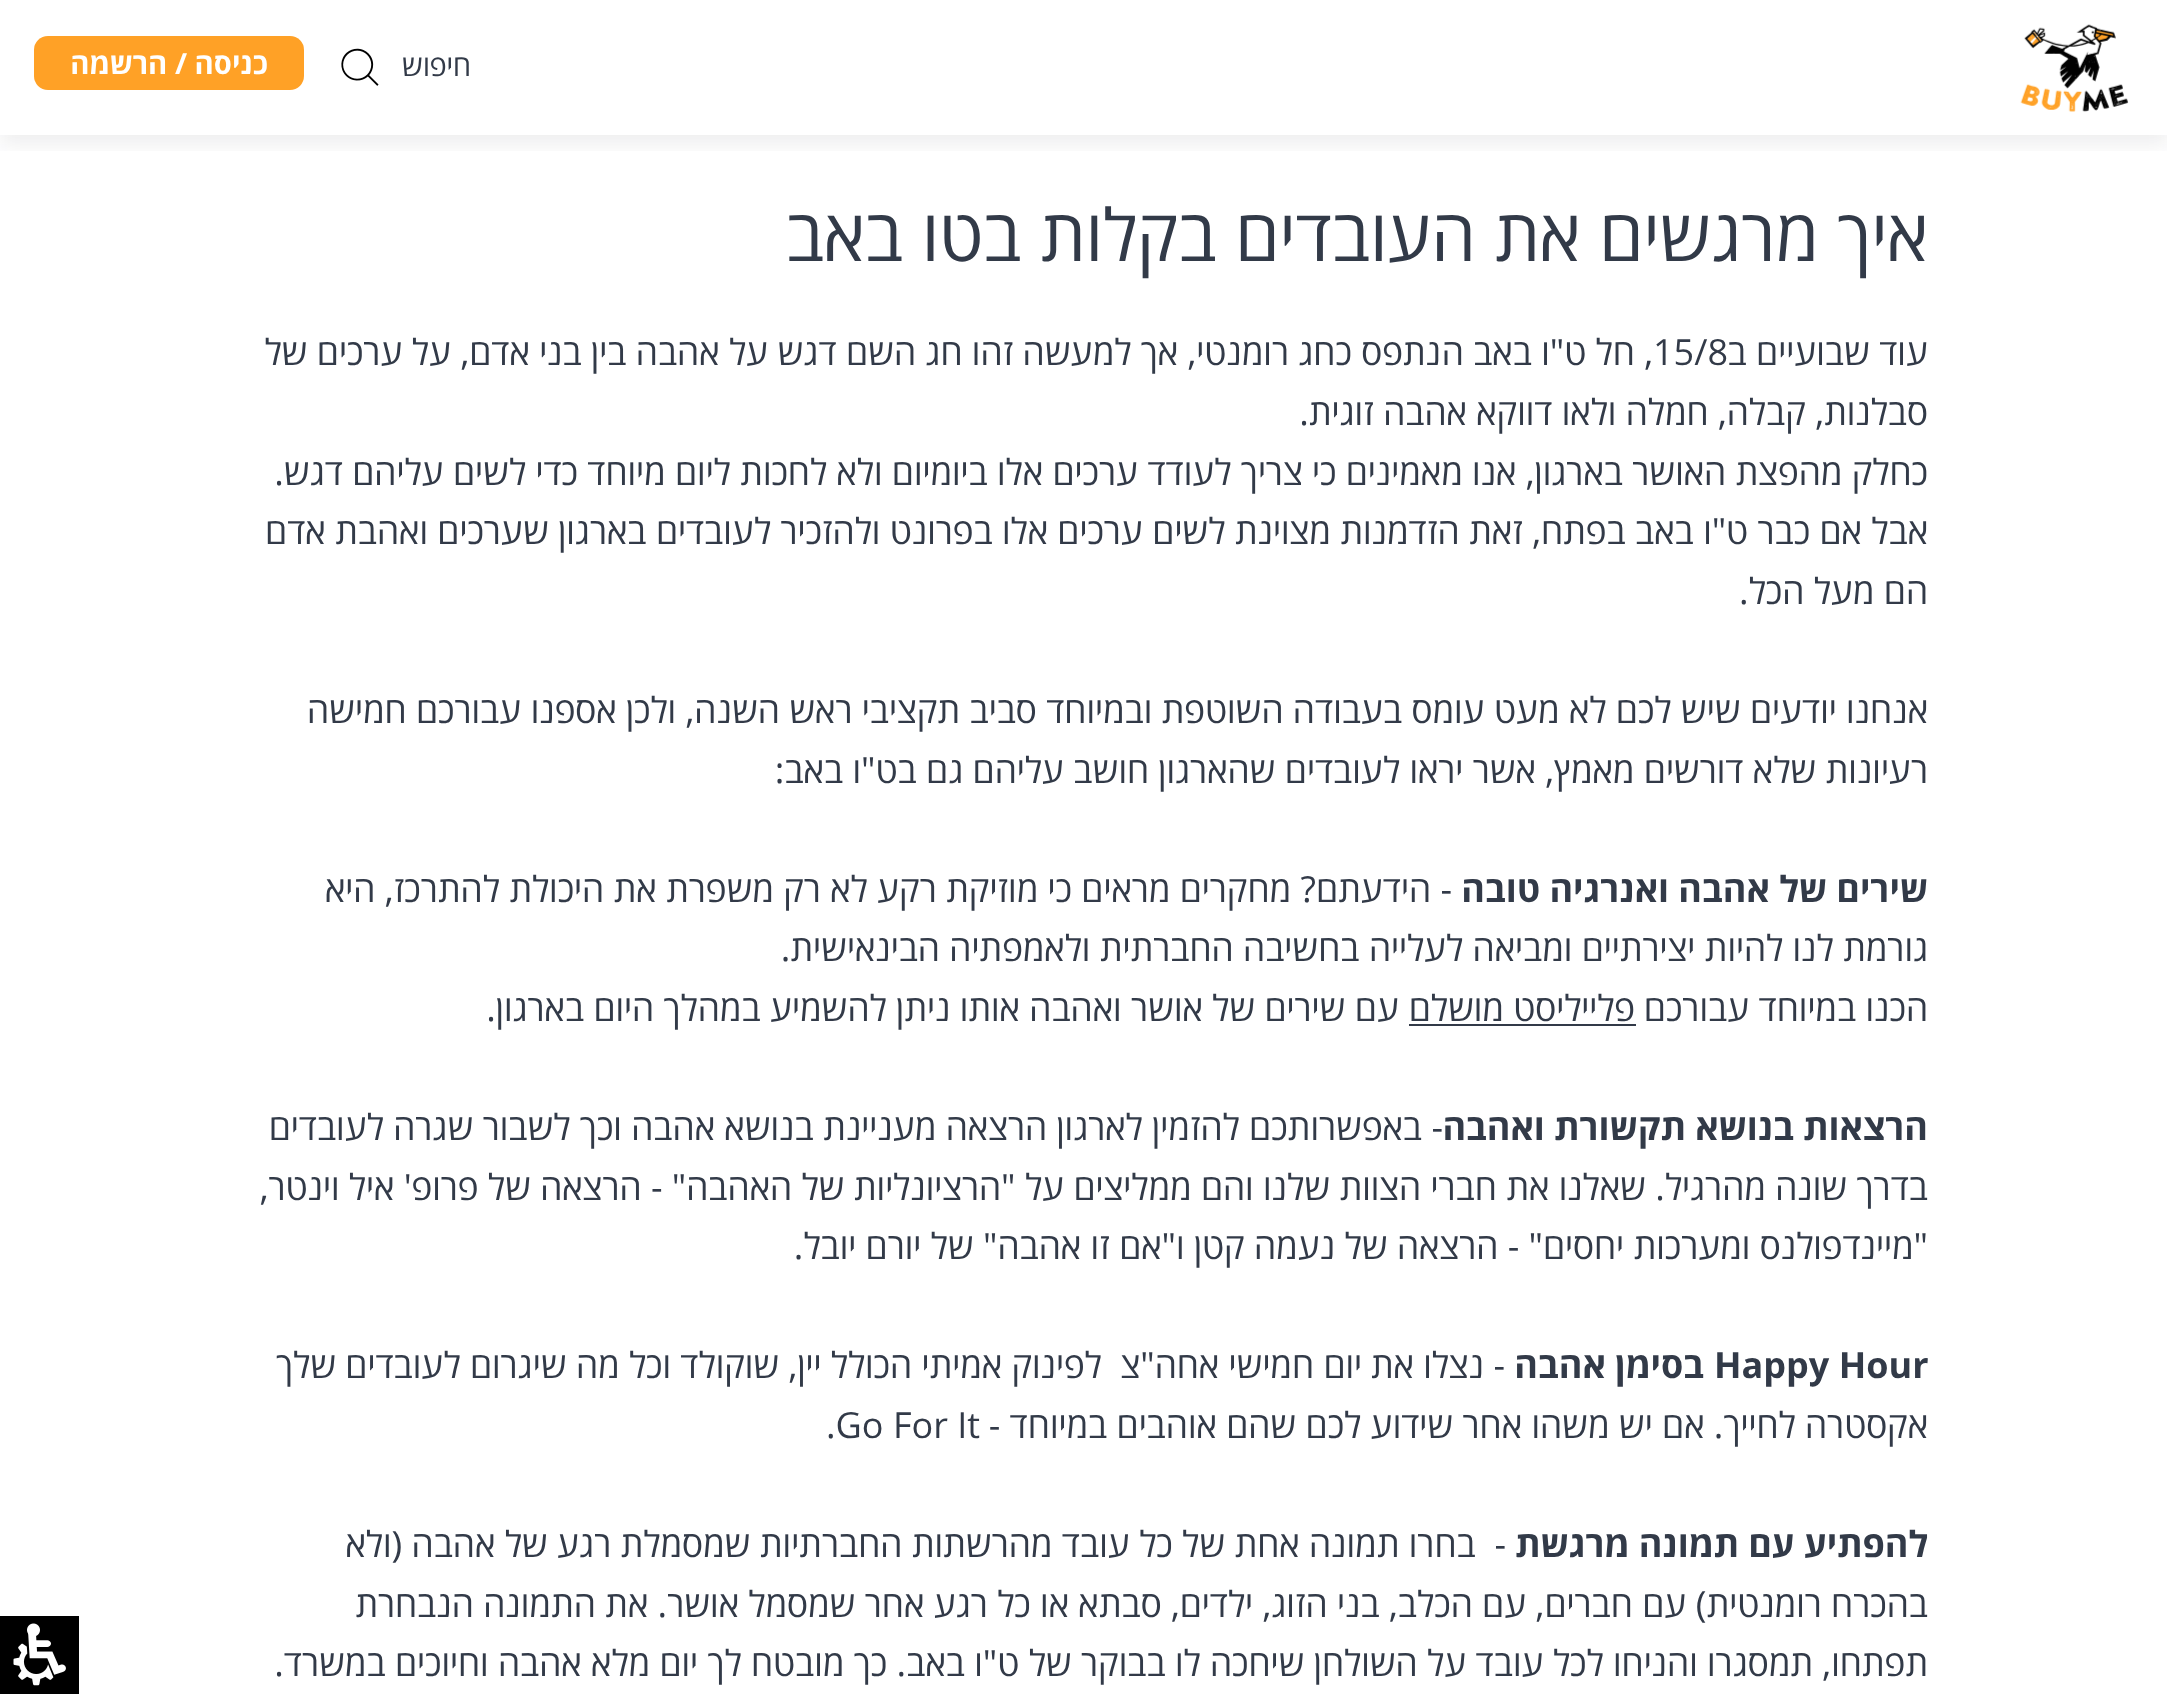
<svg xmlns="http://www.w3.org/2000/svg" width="2167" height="1694">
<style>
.a{font:29.25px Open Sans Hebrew;direction:rtl;fill:#323a48}
.b{font:bold 29.25px Open Sans Hebrew;direction:rtl;fill:#fff}
.c{font:72px Open Sans Hebrew;direction:rtl;fill:#323a48}
.d{font:36px Open Sans Hebrew;direction:rtl;fill:#323a48}
.e{font:36px Open Sans Hebrew;fill:#323a48}
.f{font:bold 36px Open Sans Hebrew;direction:rtl;fill:#323a48}
.g{font:bold 36px Open Sans Hebrew;fill:#323a48}
</style>
<defs>
<clipPath id="clip1"><path d="M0 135h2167v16H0z"/></clipPath>
</defs>
<rect width="100%" height="100%" fill="#fff"/>
<g clip-path="url(#clip1)">
<path fill="#1a1e2514" filter="blur(11px)" d="M0 9h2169v135H0z"/>
</g>
<image href="1.png" x="2020" y="24" width="109" height="88"/>
<image href="2.png" x="341" y="48" width="38" height="38"/>
<rect fill="#ffa126" x="34" y="36" width="270" height="54" rx="14"/>
<path fill="#323a48" d="M1409 1024h227v2H1409z"/>
<path fill="#000" d="M0 1616h79v78H0z"/>
<image href="3.png" x="13" y="1623" width="53" height="63"/>
<text class="a" x="471" y="76">חיפוש</text>
<text class="b" x="268" y="74">כניסה / הרשמה</text>
<text class="c" x="1928" y="261">איך מרגשים את העובדים בקלות בטו באב</text>
<text class="d" x="1928" y="365">עוד שבועיים ב</text>
<text class="e" x="1653" y="365">15/8</text>
<text class="d" x="1653" y="365">, חל ט"ו באב ה</text>
<text class="d" x="1441" y="365">נתפס כחג רומנטי, אך למעשה זהו חג השם דגש על אהבה בין בני אדם, על ערכים של</text>
<text class="d" x="1928" y="425">סבלנות, קבלה, חמלה ולאו דווקא אהבה זוגית.</text>
<text class="d" x="1928" y="485">כחלק מהפצת האושר בארגון, אנו מאמינים כי צריך לעודד ערכים אלו ביומיום ולא לחכות ליום מיוחד כדי לשים עליהם דגש.</text>
<text class="d" x="1928" y="544">אבל אם כבר ט"ו באב בפתח, זאת הזדמנות מצוינת לשים ערכים אלו בפרונט ולהזכיר לעובדים בארגון שערכים ואהבת אדם</text>
<text class="d" x="1928" y="604">הם מעל הכל.</text>
<text class="d" x="1928" y="723">אנחנו יודעים שיש לכם לא מעט עומס בעבודה השוטפת ובמיוחד סביב תקציבי ראש השנה, ולכן אספנו עבורכם חמישה</text>
<text class="d" x="1928" y="783">רעיונות שלא דורשים מאמץ, אשר יראו לעובדים שהארגון חושב עליהם גם בט"ו באב:</text>
<text class="f" x="1928" y="902">שירים של אהבה ואנרגיה טובה</text>
<text class="d" x="1452" y="902">- הידעתם? מחקרים מראים כי מוזיקת רקע לא רק משפרת את היכולת להתרכז, היא</text>
<text class="d" x="1928" y="961">גורמת לנו להיות יצירתיים ומביאה לעלייה בחשיבה החברתית ולאמפתיה הבינאישית.</text>
<text class="d" x="1928" y="1021">הכנו במיוחד עבורכם</text>
<text class="d" x="1635" y="1021">פלייליסט מושלם</text>
<text class="d" x="1399" y="1021">עם שירים של אושר ואהבה אותו ניתן להשמיע במהלך היום בארגון.</text>
<text class="f" x="1928" y="1140">הרצאות בנושא תקשורת ואהבה</text>
<text class="d" x="1443" y="1140">- באפשרותכם להזמין לארגון הרצאה מעניינת בנושא אהבה וכך לשבור שגרה לעובדים</text>
<text class="d" x="1928" y="1200">בדרך שונה מהרגיל.</text>
<text class="d" x="1646" y="1200">שאלנו את חברי הצוות שלנו והם ממליצים על "הרציונליות של האהבה" - הרצאה של פרופ' איל וינטר,</text>
<text class="d" x="1928" y="1259">"מיינדפולנס ומערכות יחסים" - הרצאה של נעמה קטן ו"אם זו אהבה" של יורם יובל.</text>
<text class="g" x="1714" y="1378">Happy Hour</text>
<text class="f" x="1704" y="1378">בסימן אהבה</text>
<text class="d" x="1505" y="1378">- נצלו את</text>
<text class="d" xml:space="preserve" x="1362" y="1378">יום חמישי אחה"צ  לפינוק אמיתי הכולל יין, שוקולד וכל מה שיגרום לעובדים שלך</text>
<text class="d" x="1928" y="1438">אקסטרה לחייך. אם יש משהו אחר שידוע לכם שהם אוהבים במיוחד -</text>
<text class="e" x="826" y="1438">.Go For It</text>
<text class="f" x="1928" y="1557">להפתיע עם תמונה מרגשת</text>
<text class="d" xml:space="preserve" x="1506" y="1557">-  בחרו תמונה אחת של כל עובד מהרשתות החברתיות שמסמלת רגע של אהבה (ולא</text>
<text class="d" x="1928" y="1617">בהכרח רומנטית) עם חברים, עם הכלב, בני הזוג, ילדים, סבתא או כל רגע אחר שמסמל אושר. את התמונה הנבחרת</text>
<text class="d" x="1928" y="1676">תפתחו, תמסגרו והניחו לכל עובד על השולחן שיחכה לו בבוקר של ט"ו באב. כך מובטח לך יום מלא אהבה וחיוכים במשרד.</text>
</svg>
